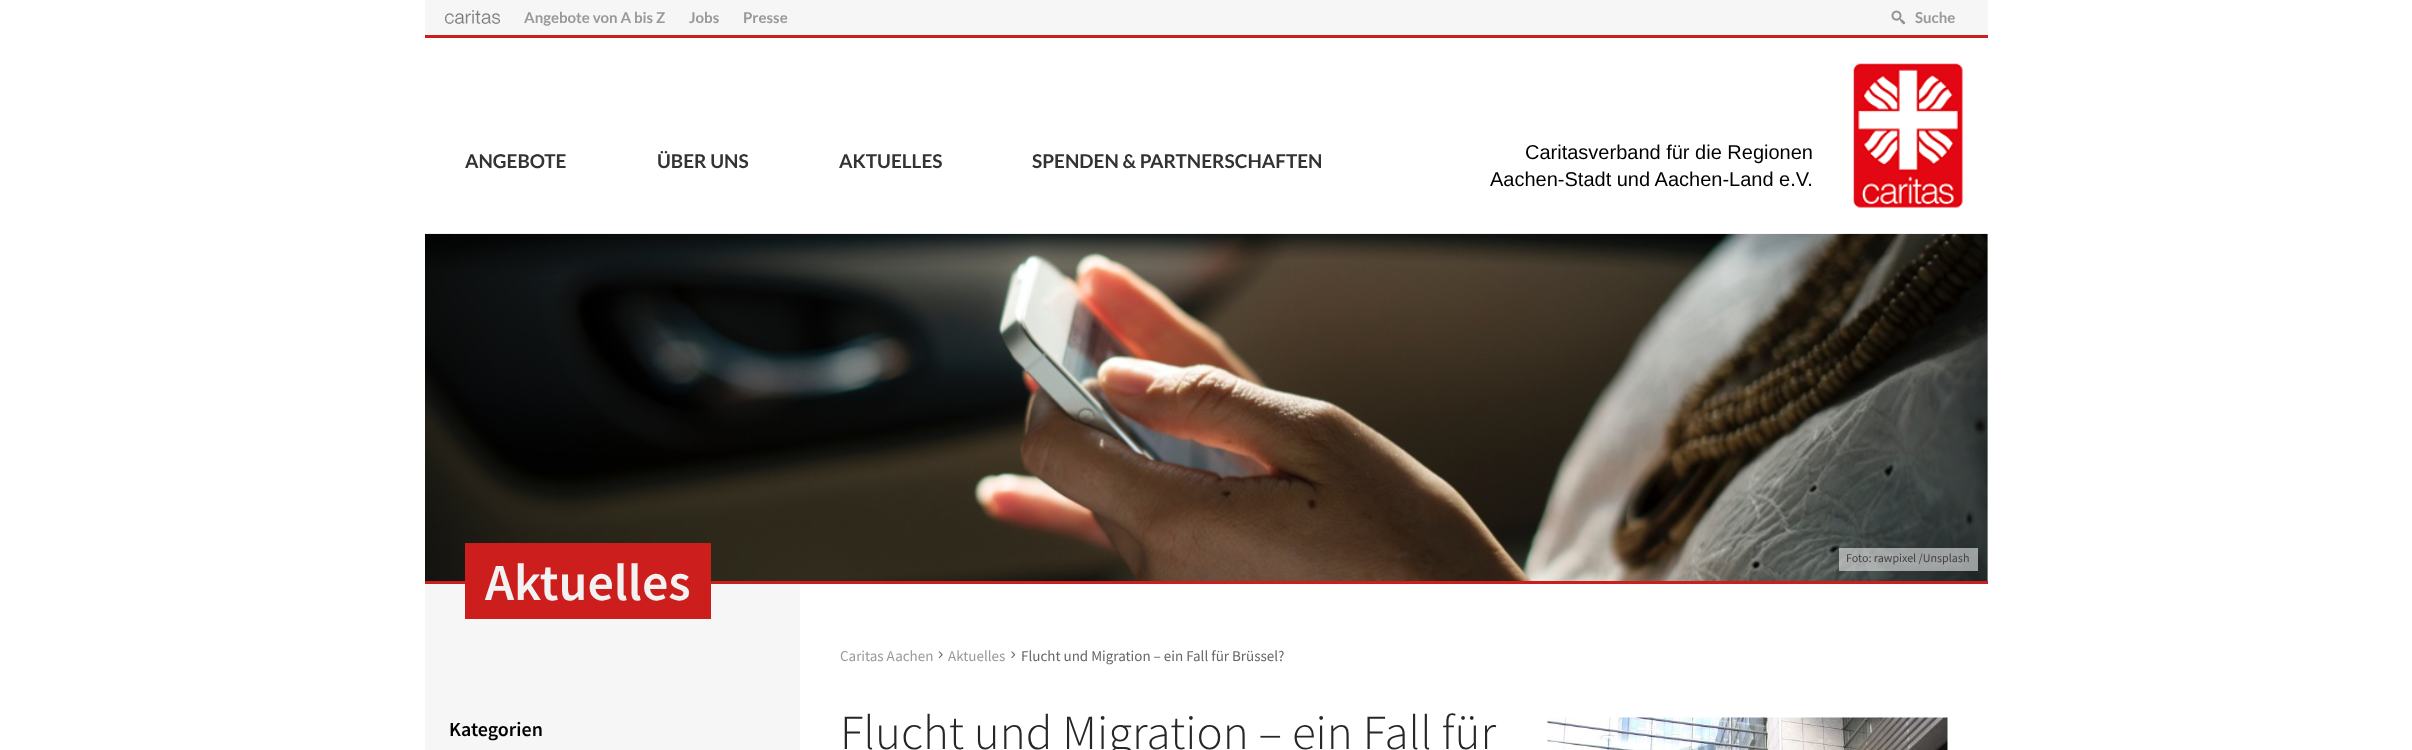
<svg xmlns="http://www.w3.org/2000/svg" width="2412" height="750">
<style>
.a{font:bold 15px Lato;fill:#999}
.b{font:bold 19px Lato;fill:#333}
.c{font:20px Liberation Sans;fill:#000}
.d{font:12px Source Sans Pro;fill:#414343}
.e{font:600 52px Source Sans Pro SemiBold;fill:#f2f2f2}
.f{font:600 20px Source Sans Pro SemiBold;fill:#000}
.g{font:15px Source Sans Pro;fill:#999}
.h{font:15px Source Sans Pro;fill:#666}
.i{font:300 49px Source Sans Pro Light;fill:#262626}
</style>
<rect width="100%" height="100%" fill="#fff"/>
<path fill="#f6f6f6" d="M425 0h1563v35H425z"/>
<path fill="#cc1e1c" d="M425 35h1563v3H425z"/>
<image href="1.png" x="445" y="10" width="55" height="14"/>
<image href="2.png" x="1891" y="10" width="15" height="15"/>
<image href="3.png" x="1853" y="63" width="110" height="145"/>
<path fill="#ccc" d="M1987 234h1v347H1987z"/>
<image href="4.png" x="425" y="233" width="1563" height="348"/>
<path fill="#cc1e1c" d="M425 581h1563v3H425z"/>
<path fill="#ffffff8c" d="M1839 548h139v23H1839z"/>
<path fill="#f6f6f6" d="M425 584h375v166H425z"/>
<path fill="#cc1e1c" d="M465 543v76h206h-186v-76z"/>
<path fill="#cc1e1c" d="M505 619h206v-76h-20v76z"/>
<path fill="#cc1e1c" d="M485 543h206v76H485z"/>
<image href="5.png" x="938" y="651" width="5" height="8"/>
<image href="6.png" x="1011" y="651" width="5" height="8"/>
<image href="7.png" x="1547" y="717" width="401" height="33"/>
<text class="a" x="524" y="23">Angebote von A bis Z</text>
<text class="a" x="689" y="23">Jobs</text>
<text class="a" x="743" y="23">Presse</text>
<text class="a" x="1915" y="23">Suche</text>
<text class="b" x="465" y="168">ANGEBOTE</text>
<text class="b" x="657" y="168">ÜBER UNS</text>
<text class="b" x="839" y="168">AKTUELLES</text>
<text class="b" x="1032" y="168">SPENDEN &amp; PARTNERSCHAFTEN</text>
<text class="c" x="1525" y="159">Caritasverband für die Regionen</text>
<text class="c" x="1490" y="186">Aachen-Stadt und Aachen-Land e.V.</text>
<text class="d" x="1846" y="562">Foto: rawpixel /Unsplash</text>
<text class="e" x="485" y="600">Aktuelles</text>
<text class="f" x="449" y="736">Kategorien</text>
<text class="g" x="840" y="661">Caritas Aachen</text>
<text class="g" x="948" y="661">Aktuelles</text>
<text class="h" x="1021" y="661">Flucht und Migration – ein Fall für Brüssel?</text>
<text class="i" x="840" y="749">Flucht und Migration – ein Fall für</text>
</svg>
